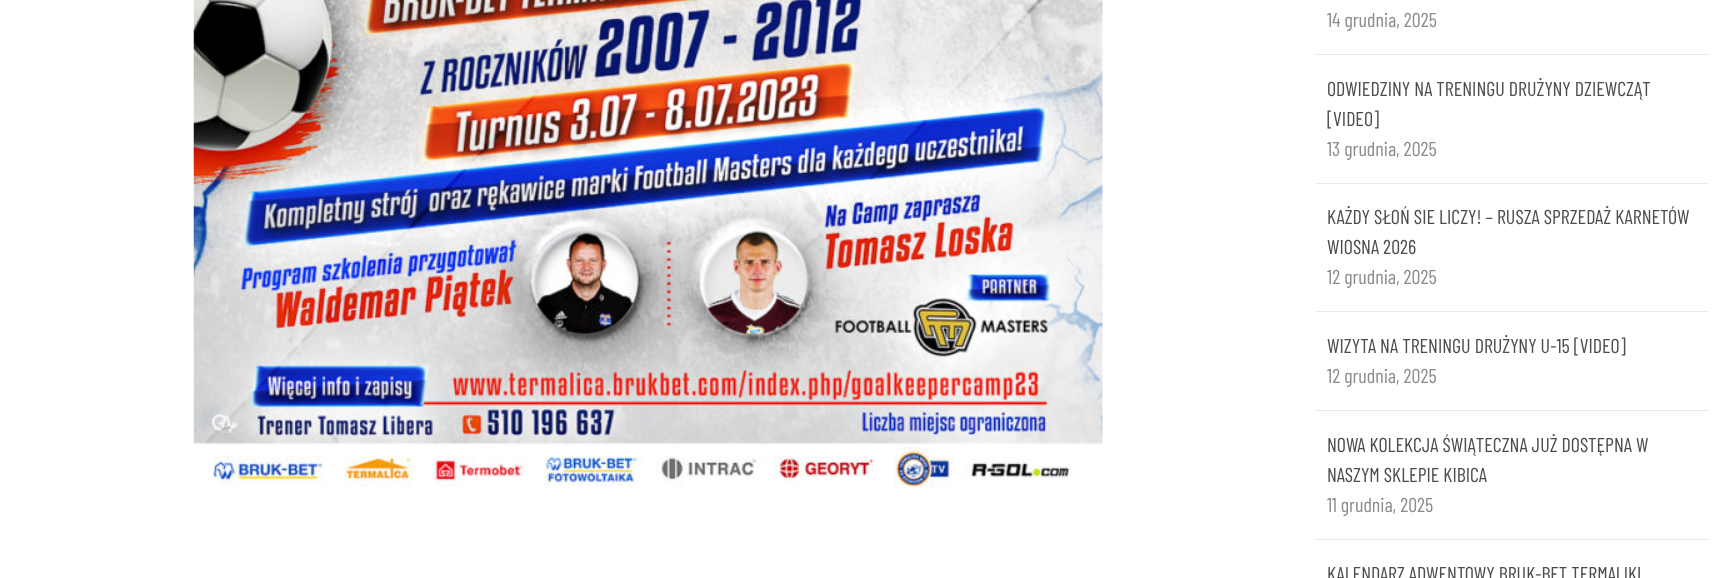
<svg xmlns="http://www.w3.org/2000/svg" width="1727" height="578">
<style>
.a{font:20px Barlow Condensed;fill:#8c8c8c}
.b{font:20px Barlow Condensed;fill:#4c4c4e}
</style>
<rect width="100%" height="100%" fill="#fff"/>
<image href="1.png" x="193" y="0" width="910" height="487"/>
<path fill="#e9e9e9" d="M1315 54h394v1H1315z"/>
<path fill="#e9e9e9" d="M1315 183h394v1H1315z"/>
<path fill="#e9e9e9" d="M1315 311h394v1H1315z"/>
<path fill="#e9e9e9" d="M1315 410h394v1H1315z"/>
<path fill="#e9e9e9" d="M1315 539h394v1H1315z"/>
<text class="a" x="1327" y="27">14 grudnia, 2025</text>
<text class="b" x="1327" y="96">ODWIEDZINY NA TRENINGU DRUŻYNY DZIEWCZĄT</text>
<text class="b" x="1327" y="126">[VIDEO]</text>
<text class="a" x="1327" y="156">13 grudnia, 2025</text>
<text class="b" x="1327" y="224">KAŻDY SŁOŃ SIE LICZY! – RUSZA SPRZEDAŻ KARNETÓW</text>
<text class="b" x="1327" y="254">WIOSNA 2026</text>
<text class="a" x="1327" y="284">12 grudnia, 2025</text>
<text class="b" x="1327" y="353">WIZYTA NA TRENINGU DRUŻYNY U-15 [VIDEO]</text>
<text class="a" x="1327" y="383">12 grudnia, 2025</text>
<text class="b" x="1327" y="452">NOWA KOLEKCJA ŚWIĄTECZNA JUŻ DOSTĘPNA W</text>
<text class="b" x="1327" y="482">NASZYM SKLEPIE KIBICA</text>
<text class="a" x="1327" y="512">11 grudnia, 2025</text>
<text class="b" x="1327" y="581">KALENDARZ ADWENTOWY BRUK-BET TERMALIKI</text>
</svg>
